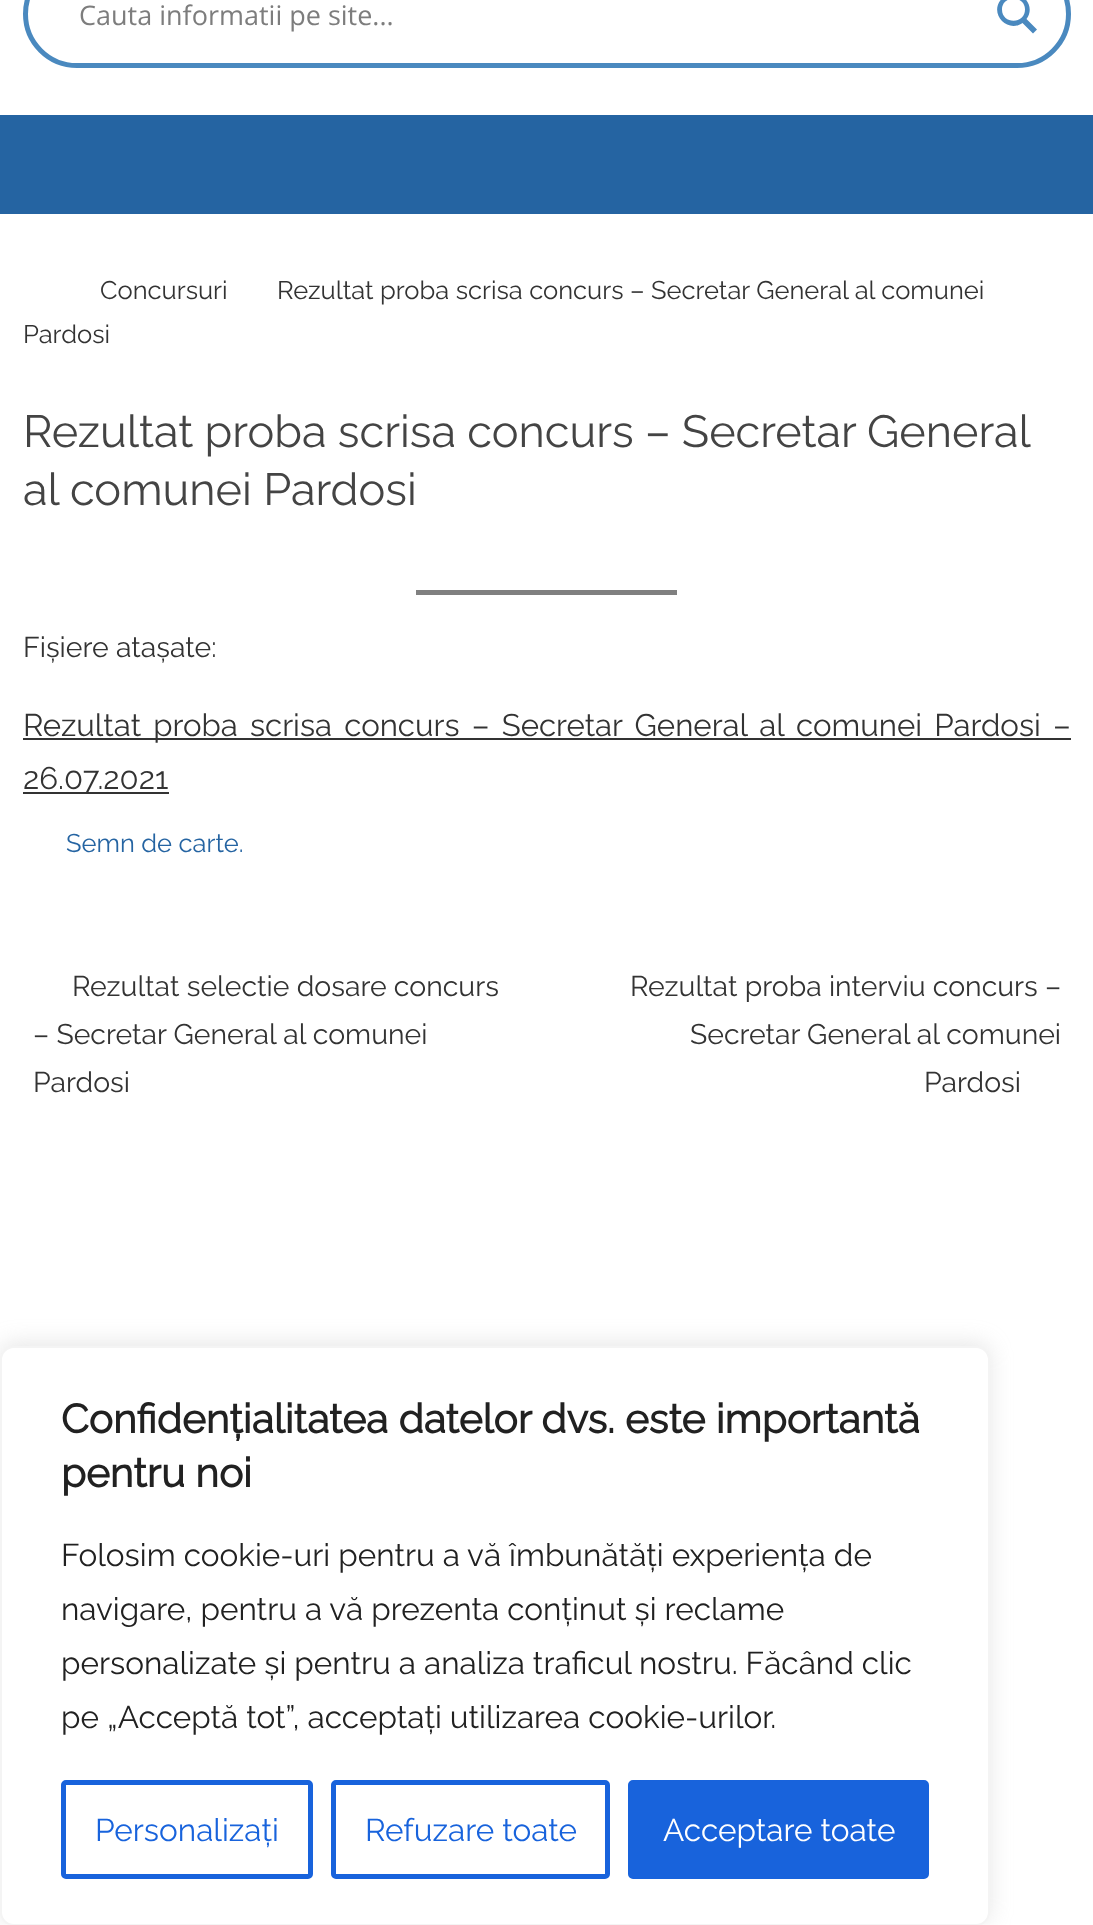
<svg xmlns="http://www.w3.org/2000/svg" width="1093" height="1925">
<style>
.a{font:27px Open Sans;fill:#7d7d7d}
.b{font:100 25.5px Raleway;fill:#333}
.c{font:100 45px Raleway;fill:#444}
.d{font:100 28.4px Raleway;fill:#333}
.e{font:100 31.2px Raleway;fill:#333}
.f{font:100 25.5px Raleway;fill:#2564a2}
.g{font:bold 40.5px Raleway;fill:#212121}
.h{font:100 31.5px Raleway;fill:#212121}
.i{font:100 31.5px Raleway;fill:#1863dc}
.j{font:100 31.5px Raleway;fill:#fff}
</style>
<rect width="100%" height="100%" fill="#fff"/>
<rect fill="none" stroke="#4a89bf" stroke-width="5" x="25.5" y="-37.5" width="1043" height="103" rx="51.5"/>
<path fill="#4a89bf" d="M1037 29.5l-10.5-10.5c11.5-15.5-10.5-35-24.5-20.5c-14 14 5 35.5 20.5 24.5l10.5 10.5zm-35-20c0-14.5 23-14.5 23 0c0 15-23 15-23 0z"/>
<path fill="#2564a2" d="M0 115h1093v99H0z"/>
<path fill="#808080" d="M416 590h261v5H416z"/>
<path fill="#333" d="M23 738h1048v2H23z"/>
<path fill="#333" d="M23 792h146v2H23z"/>
<rect fill="#acabab4d" filter="blur(11px)" y="1343" width="990" height="581" rx="14"/>
<rect fill="#fff" stroke="#f4f4f4" stroke-width="2" x="1" y="1347" width="988" height="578" rx="13"/>
<rect fill="none" stroke="#1863dc" stroke-width="5" x="63.5" y="1782.5" width="247" height="94" rx="2.5"/>
<rect fill="none" stroke="#1863dc" stroke-width="5" x="333.5" y="1782.5" width="274" height="94" rx="2.5"/>
<rect fill="#1863dc" stroke="#1863dc" stroke-width="5" x="630.5" y="1782.5" width="296" height="94" rx="2.5"/>
<text class="a" x="79" y="25">Cauta informatii pe site...</text>
<text class="b" x="100" y="299">Concursuri</text>
<text class="b" x="277" y="299">Rezultat proba scrisa concurs – Secretar General al comunei</text>
<text class="b" x="23" y="343">Pardosi</text>
<text class="c" x="23" y="447" word-spacing="-0.25">Rezultat proba scrisa concurs – Secretar General</text>
<text class="c" x="23" y="505">al comunei Pardosi</text>
<text class="d" x="23" y="657">Fișiere atașate:</text>
<text class="e" x="23" y="736" word-spacing="4.25">Rezultat proba scrisa concurs – Secretar General al comunei Pardosi –</text>
<text class="e" x="23" y="789">26.07.2021</text>
<text class="f" x="66" y="852">Semn de carte.</text>
<text class="d" x="72" y="996">Rezultat selectie dosare concurs</text>
<text class="d" x="33" y="1044">– Secretar General al comunei</text>
<text class="d" x="33" y="1092">Pardosi</text>
<text class="d" x="630" y="996">Rezultat proba interviu concurs –</text>
<text class="d" x="690" y="1044">Secretar General al comunei</text>
<text class="d" x="924" y="1092">Pardosi</text>
<text class="g" x="61" y="1433">Confidențialitatea datelor dvs. este importantă</text>
<text class="g" x="61" y="1487">pentru noi</text>
<text class="h" x="61" y="1566">Folosim cookie-uri pentru a vă îmbunătăți experiența de</text>
<text class="h" x="61" y="1620">navigare, pentru a vă prezenta conținut și reclame</text>
<text class="h" x="61" y="1674">personalizate și pentru a analiza traficul nostru. Făcând clic</text>
<text class="h" x="61" y="1728">pe „Acceptă tot”, acceptați utilizarea cookie-urilor.</text>
<text class="i" x="95" y="1841">Personalizați</text>
<text class="i" x="365" y="1841">Refuzare toate</text>
<text class="j" x="663" y="1841">Acceptare toate</text>
</svg>
